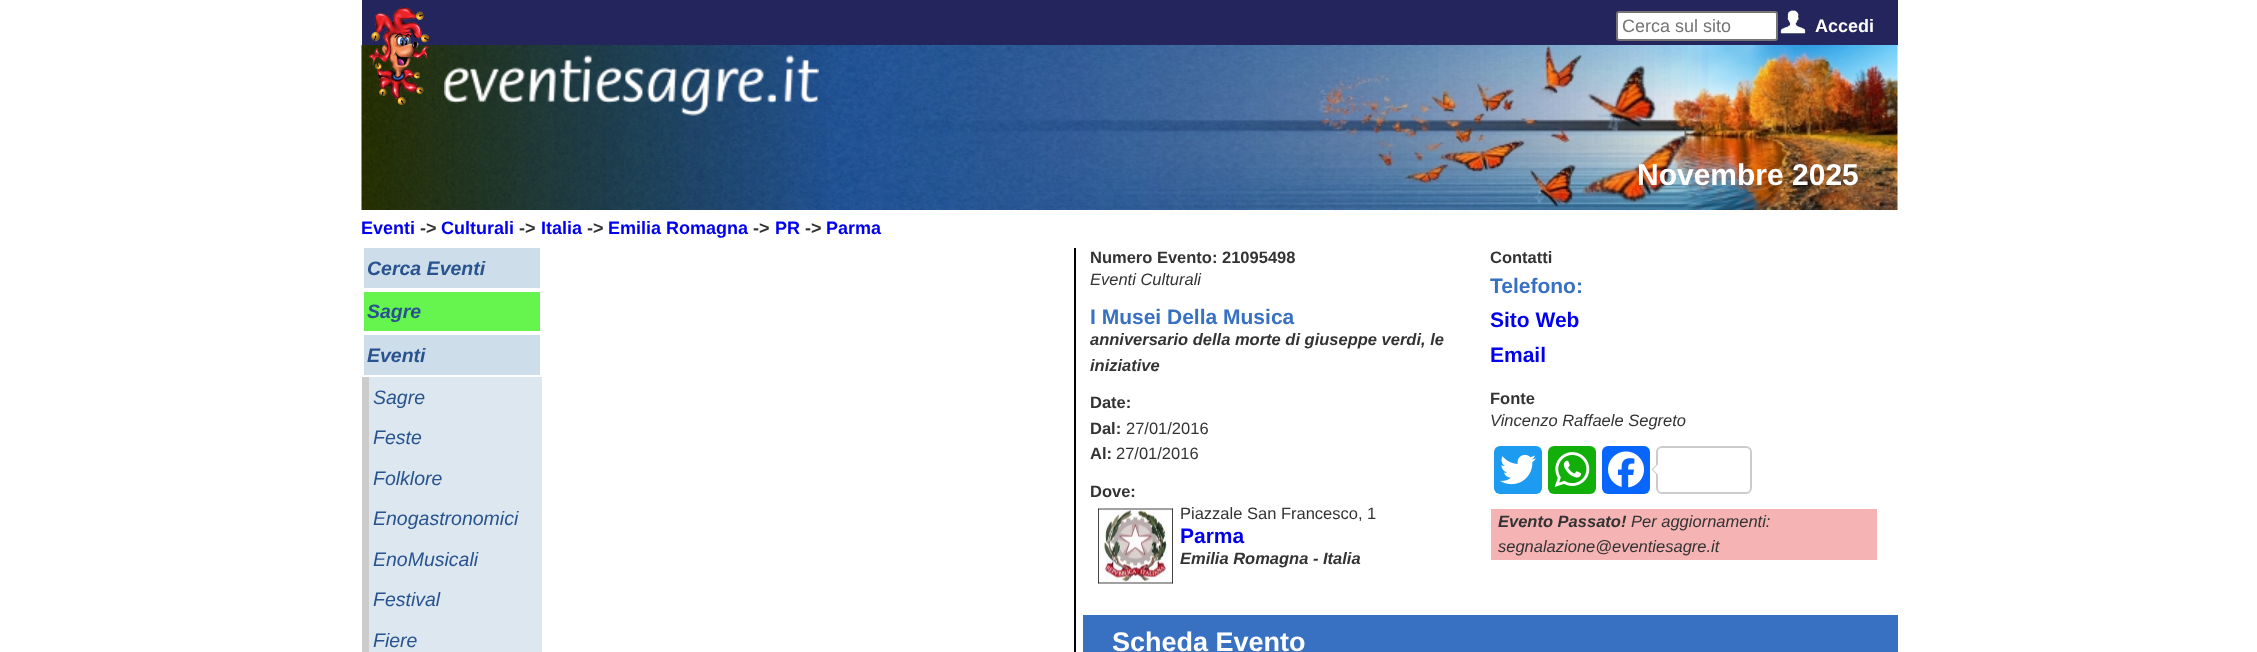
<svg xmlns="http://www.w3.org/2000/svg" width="2257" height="652">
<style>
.a{font:18px Liberation Sans;fill:#757575}
.b{font:bold 18px Liberation Sans;fill:#fff}
.c{font:bold 30px Liberation Sans;fill:#fff}
.d{font:bold 18px Liberation Sans;fill:#00e}
.e{font:bold 18px Liberation Sans;fill:#333}
.f{font:italic bold 19.5px Liberation Sans;fill:#29538f}
.g{font:italic 19.5px Liberation Sans;fill:#29538f}
.h{font:bold 16.5px Liberation Sans;fill:#333}
.i{font:italic 16.5px Liberation Sans;fill:#333}
.j{font:bold 21px Liberation Sans;fill:#3871c2}
.k{font:italic bold 16.5px Liberation Sans;fill:#333}
.l{font:16.5px Liberation Sans;fill:#333}
.m{font:bold 21px Liberation Sans;fill:#00e}
.n{font:bold 27px Liberation Sans;fill:#fff}
</style>
<rect width="100%" height="100%" fill="#fff"/>
<path fill="#24255d" d="M362 0h1536v45H362z"/>
<image href="3.png" x="361" y="45" width="1537" height="165"/>
<image href="1.png" x="369" y="7" width="60" height="98"/>
<rect fill="#fff" stroke="#767676" stroke-width="2" x="1617" y="12" width="160" height="28" rx="2"/>
<image href="2.png" x="1780" y="10" width="26" height="24"/>
<image href="4.png" x="444" y="55" width="375" height="61"/>
<path fill="#cddde9" d="M364 248h176v40H364z"/>
<path fill="#65f54e" d="M364 292h176v39H364z"/>
<path fill="#cddde9" d="M364 335h176v40H364z"/>
<path fill="#dce7ef" d="M369 377h173v275H369z"/>
<path fill="#ccc" d="M362 377h7v275H362z"/>
<path fill="#000" d="M1074 248h2v404H1074z"/>
<image href="5.png" x="1098" y="508" width="75" height="76"/>
<rect fill="#1d9bf0" x="1494" y="446" width="48" height="48" rx="6"/>
<image href="6.png" x="1500" y="454" width="36" height="31"/>
<rect fill="#12af0a" x="1548" y="446" width="48" height="48" rx="6"/>
<image href="7.png" x="1554" y="452" width="36" height="35"/>
<rect fill="#0866ff" x="1602" y="446" width="48" height="48" rx="6"/>
<image href="8.png" x="1608" y="451" width="36" height="37"/>
<rect fill="none" stroke="#ccc" stroke-width="2" x="1657" y="447" width="94" height="46" rx="5"/>
<path fill="#ccc" d="M1657.5 463.5v12l-6-6z"/>
<path fill="#fff" d="M1659 463.5v12l-6-6z"/>
<path fill="#f5b3b4" d="M1491 509h386v51H1491z"/>
<path fill="#3871c2" d="M1083 615h815v37H1083z"/>
<text class="a" x="1622" y="32">Cerca sul sito</text>
<text class="b" x="1815" y="32">Accedi</text>
<text class="c" x="1637" y="185">Novembre 2025</text>
<text class="d" x="361" y="234">Eventi</text>
<text class="e" x="420" y="234">-&gt;</text>
<text class="d" x="441" y="234">Culturali</text>
<text class="e" x="519" y="234">-&gt;</text>
<text class="d" x="541" y="234">Italia</text>
<text class="e" x="587" y="234">-&gt;</text>
<text class="d" x="608" y="234">Emilia Romagna</text>
<text class="e" x="753" y="234">-&gt;</text>
<text class="d" x="775" y="234">PR</text>
<text class="e" x="805" y="234">-&gt;</text>
<text class="d" x="826" y="234">Parma</text>
<text class="f" x="367" y="275">Cerca Eventi</text>
<text class="f" x="367" y="318">Sagre</text>
<text class="f" x="367" y="362">Eventi</text>
<text class="g" x="373" y="404">Sagre</text>
<text class="g" x="373" y="444">Feste</text>
<text class="g" x="373" y="485">Folklore</text>
<text class="g" x="373" y="525">Enogastronomici</text>
<text class="g" x="373" y="566">EnoMusicali</text>
<text class="g" x="373" y="606">Festival</text>
<text class="g" x="373" y="647">Fiere</text>
<text class="h" x="1090" y="263">Numero Evento: 21095498</text>
<text class="i" x="1090" y="285">Eventi Culturali</text>
<text class="j" x="1090" y="324">I Musei Della Musica</text>
<text class="k" x="1090" y="345">anniversario della morte di giuseppe verdi, le</text>
<text class="k" x="1090" y="371">iniziative</text>
<text class="h" x="1090" y="408">Date:</text>
<text class="h" x="1090" y="434">Dal:</text>
<text class="l" x="1126" y="434">27/01/2016</text>
<text class="h" x="1090" y="459">Al:</text>
<text class="l" x="1116" y="459">27/01/2016</text>
<text class="h" x="1090" y="497">Dove:</text>
<text class="l" x="1180" y="519">Piazzale San Francesco, 1</text>
<text class="m" x="1180" y="543">Parma</text>
<text class="k" x="1180" y="564">Emilia Romagna - Italia</text>
<text class="h" x="1490" y="263">Contatti</text>
<text class="j" x="1490" y="293">Telefono:</text>
<text class="m" x="1490" y="327">Sito Web</text>
<text class="m" x="1490" y="362">Email</text>
<text class="h" x="1490" y="404">Fonte</text>
<text class="i" x="1490" y="426">Vincenzo Raffaele Segreto</text>
<text class="k" x="1498" y="527">Evento Passato!</text>
<text class="i" x="1631" y="527">Per aggiornamenti:</text>
<text class="i" x="1498" y="552">segnalazione@eventiesagre.it</text>
<text class="n" x="1112" y="651">Scheda Evento</text>
</svg>
